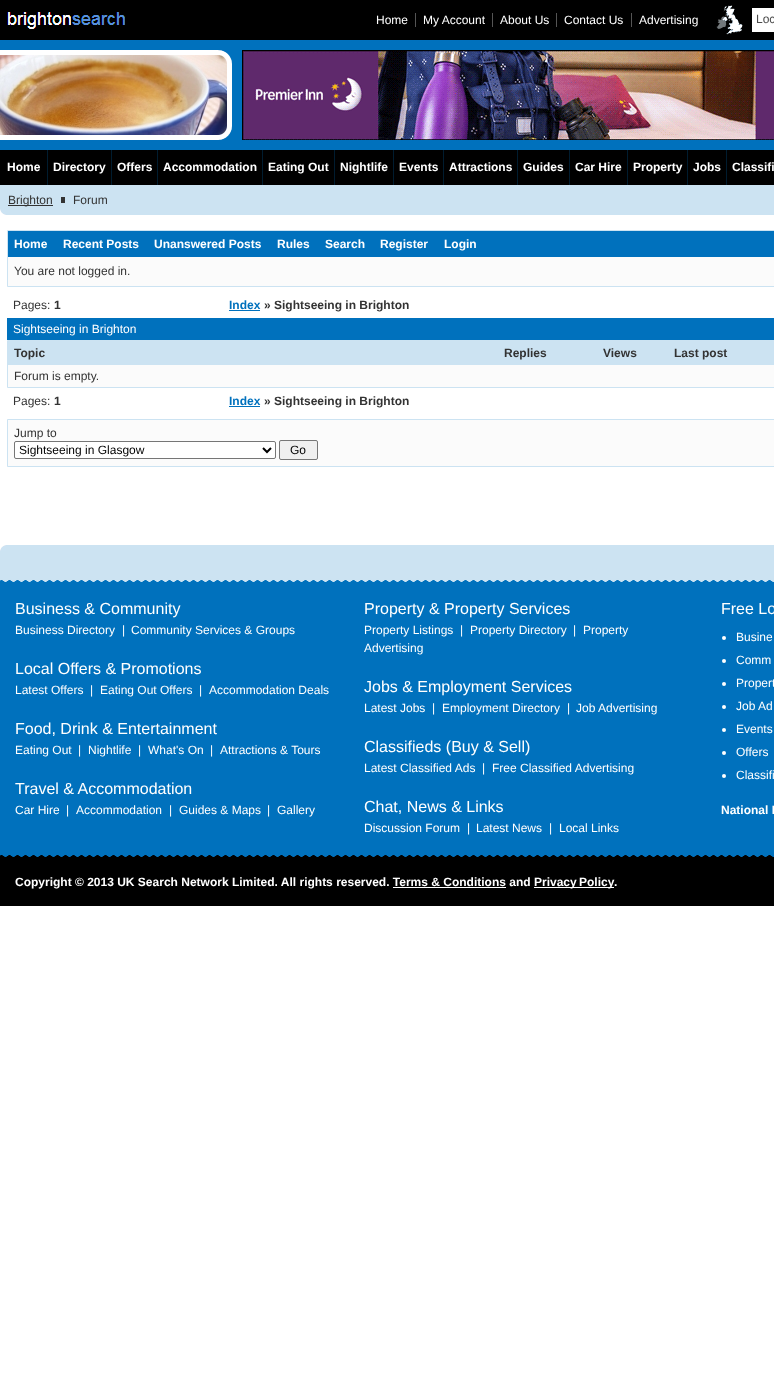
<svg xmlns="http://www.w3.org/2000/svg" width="774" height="1374">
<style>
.a{font:12px Liberation Sans;fill:#fff}
.b{font:12px Liberation Sans;fill:#4c4c4c}
.c{font:bold 12px Liberation Sans;fill:#fff}
.d{font:12px Liberation Sans;fill:#333}
.e{font:bold 12px Liberation Sans;fill:#333}
.f{font:bold 12px Liberation Sans;fill:#0071bd}
.g{font:12px Liberation Sans;fill:#000}
.h{font:16px Liberation Sans;fill:#fff}
</style>
<rect width="100%" height="100%" fill="#fff"/>
<path fill="#000" d="M0 0h774v40H0z"/>
<image href="1.png" x="7" y="12" width="118" height="17"/>
<path fill="#555" d="M415 13h1v14H415z"/>
<path fill="#555" d="M492 13h1v14H492z"/>
<path fill="#555" d="M556 13h1v14H556z"/>
<path fill="#555" d="M631 13h1v14H631z"/>
<image href="2.png" x="716" y="5" width="27" height="30"/>
<path fill="#fff" d="M752 8h22v24H752z"/>
<path fill="#0071bd" d="M0 40h774v110H0z"/>
<image href="3.png" x="0" y="50" width="232" height="90"/>
<image href="4.png" x="0" y="55" width="227" height="80"/>
<image href="5.png" x="242" y="50" width="532" height="90"/>
<path fill="#000" d="M0 150h774v35H0z"/>
<path fill="#001c2f" d="M47 150h1v35H47z"/>
<path fill="#001c2f" d="M111 150h1v35H111z"/>
<path fill="#001c2f" d="M157 150h1v35H157z"/>
<path fill="#001c2f" d="M262 150h1v35H262z"/>
<path fill="#001c2f" d="M334 150h1v35H334z"/>
<path fill="#001c2f" d="M393 150h1v35H393z"/>
<path fill="#001c2f" d="M443 150h1v35H443z"/>
<path fill="#001c2f" d="M517 150h1v35H517z"/>
<path fill="#001c2f" d="M569 150h1v35H569z"/>
<path fill="#001c2f" d="M627 150h1v35H627z"/>
<path fill="#001c2f" d="M687 150h1v35H687z"/>
<path fill="#001c2f" d="M726 150h1v35H726z"/>
<path fill="#cce3f2" d="M0 185h774v30H0z"/>
<image href="6.png" x="0" y="209" width="6" height="6"/>
<path fill="#333" d="M8 205h45v1H8z"/>
<path fill="#333" d="M61 197h4v6H61z"/>
<path fill="#fbfbfb" d="M8 257h766v29H8z"/>
<path fill="none" stroke="#cce3f2" d="M7.5 230.5h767v56H7.5z"/>
<path fill="#0071bd" d="M8 231h766v26H8z"/>
<path fill="#0071bd" d="M229 310h31v1H229z"/>
<path fill="#0071bd" d="M7 318h767v22H7z"/>
<path fill="#fbfbfb" d="M8 365h766v22H8z"/>
<path fill="none" stroke="#cce3f2" d="M7.5 340.5h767v47H7.5z"/>
<path fill="#cce3f2" d="M8 341h766v24H8z"/>
<path fill="#0071bd" d="M229 406h31v1H229z"/>
<path fill="#fbfbfb" stroke="#cce3f2" d="M7.5 419.5h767v47H7.5z"/>
<rect fill="#fff" stroke="#767676" x="14.5" y="441.5" width="261" height="17" rx="1.5"/>
<path fill="none" stroke="#000" stroke-width="2" d="M263 448l4 4l4-4"/>
<rect fill="#efefef" stroke="#767676" x="279.5" y="440.5" width="38" height="19" rx="1.5"/>
<path fill="#cce3f2" d="M0 545h774v35H0z"/>
<image href="7.png" x="0" y="545" width="6" height="6"/>
<path fill="#cce3f2" d="M773 580h1v2H773z"/>
<image href="8.png" x="0" y="580" width="773" height="2"/>
<path fill="#0071bd" d="M0 582h774v273H0z"/>
<circle fill="#fff" cx="724" cy="638" r="2"/>
<circle fill="#fff" cx="724" cy="661" r="2"/>
<circle fill="#fff" cx="724" cy="684" r="2"/>
<circle fill="#fff" cx="724" cy="707" r="2"/>
<circle fill="#fff" cx="724" cy="730" r="2"/>
<circle fill="#fff" cx="724" cy="753" r="2"/>
<circle fill="#fff" cx="724" cy="776" r="2"/>
<image href="9.png" x="0" y="855" width="774" height="2"/>
<path fill="#000" d="M0 857h774v49H0z"/>
<path fill="#fff" d="M534 887h80v1H534z"/>
<path fill="#fff" d="M393 887h113v1H393z"/>
<text class="a" x="376" y="24">Home</text>
<text class="a" x="423" y="24">My Account</text>
<text class="a" x="500" y="24">About Us</text>
<text class="a" x="564" y="24">Contact Us</text>
<text class="a" x="639" y="24">Advertising</text>
<text class="b" x="756" y="23">Loc</text>
<text class="c" x="7" y="171">Home</text>
<text class="c" x="53" y="171">Directory</text>
<text class="c" x="117" y="171">Offers</text>
<text class="c" x="163" y="171">Accommodation</text>
<text class="c" x="268" y="171">Eating Out</text>
<text class="c" x="340" y="171">Nightlife</text>
<text class="c" x="399" y="171">Events</text>
<text class="c" x="449" y="171">Attractions</text>
<text class="c" x="523" y="171">Guides</text>
<text class="c" x="575" y="171">Car Hire</text>
<text class="c" x="633" y="171">Property</text>
<text class="c" x="693" y="171">Jobs</text>
<text class="c" x="732" y="171">Classifi</text>
<text class="d" x="8" y="204">Brighton</text>
<text class="d" x="73" y="204">Forum</text>
<text class="c" x="14" y="248">Home</text>
<text class="c" x="63" y="248">Recent Posts</text>
<text class="c" x="154" y="248">Unanswered Posts</text>
<text class="c" x="277" y="248">Rules</text>
<text class="c" x="325" y="248">Search</text>
<text class="c" x="380" y="248">Register</text>
<text class="c" x="444" y="248">Login</text>
<text class="d" x="14" y="275">You are not logged in.</text>
<text class="d" x="13" y="309">Pages:</text>
<text class="e" x="54" y="309">1</text>
<text class="f" x="229" y="309">Index</text>
<text class="e" x="264" y="309">» Sightseeing in Brighton</text>
<text class="a" x="13" y="333">Sightseeing in Brighton</text>
<text class="e" x="14" y="357">Topic</text>
<text class="e" x="504" y="357">Replies</text>
<text class="e" x="603" y="357">Views</text>
<text class="e" x="674" y="357">Last post</text>
<text class="d" x="14" y="380">Forum is empty.</text>
<text class="d" x="13" y="405">Pages:</text>
<text class="e" x="54" y="405">1</text>
<text class="f" x="229" y="405">Index</text>
<text class="e" x="264" y="405">» Sightseeing in Brighton</text>
<text class="d" x="14" y="437">Jump to</text>
<text class="g" x="19" y="454">Sightseeing in Glasgow</text>
<text class="g" x="290" y="454">Go</text>
<text class="h" x="15" y="614">Business &amp; Community</text>
<text class="a" x="15" y="634">Business Directory</text>
<text class="a" x="122" y="634">|</text>
<text class="a" x="131" y="634">Community Services &amp; Groups</text>
<text class="h" x="15" y="674">Local Offers &amp; Promotions</text>
<text class="a" x="15" y="694">Latest Offers</text>
<text class="a" x="90" y="694">|</text>
<text class="a" x="100" y="694">Eating Out Offers</text>
<text class="a" x="199" y="694">|</text>
<text class="a" x="209" y="694">Accommodation Deals</text>
<text class="h" x="15" y="734">Food, Drink &amp; Entertainment</text>
<text class="a" x="15" y="754">Eating Out</text>
<text class="a" x="78" y="754">|</text>
<text class="a" x="88" y="754">Nightlife</text>
<text class="a" x="138" y="754">|</text>
<text class="a" x="148" y="754">What's On</text>
<text class="a" x="210" y="754">|</text>
<text class="a" x="220" y="754">Attractions &amp; Tours</text>
<text class="h" x="15" y="794">Travel &amp; Accommodation</text>
<text class="a" x="15" y="814">Car Hire</text>
<text class="a" x="66" y="814">|</text>
<text class="a" x="76" y="814">Accommodation</text>
<text class="a" x="169" y="814">|</text>
<text class="a" x="179" y="814">Guides &amp; Maps</text>
<text class="a" x="267" y="814">|</text>
<text class="a" x="277" y="814">Gallery</text>
<text class="h" x="364" y="614">Property &amp; Property Services</text>
<text class="a" x="364" y="634">Property Listings</text>
<text class="a" x="460" y="634">|</text>
<text class="a" x="470" y="634">Property Directory</text>
<text class="a" x="573" y="634">|</text>
<text class="a" x="583" y="634">Property</text>
<text class="a" x="364" y="652">Advertising</text>
<text class="h" x="364" y="692">Jobs &amp; Employment Services</text>
<text class="a" x="364" y="712">Latest Jobs</text>
<text class="a" x="432" y="712">|</text>
<text class="a" x="442" y="712">Employment Directory</text>
<text class="a" x="567" y="712">|</text>
<text class="a" x="576" y="712">Job Advertising</text>
<text class="h" x="364" y="752">Classifieds (Buy &amp; Sell)</text>
<text class="a" x="364" y="772">Latest Classified Ads</text>
<text class="a" x="482" y="772">|</text>
<text class="a" x="492" y="772">Free Classified Advertising</text>
<text class="h" x="364" y="812">Chat, News &amp; Links</text>
<text class="a" x="364" y="832">Discussion Forum</text>
<text class="a" x="467" y="832">|</text>
<text class="a" x="476" y="832">Latest News</text>
<text class="a" x="549" y="832">|</text>
<text class="a" x="559" y="832">Local Links</text>
<text class="h" x="721" y="614">Free Lo</text>
<text class="a" x="736" y="641">Busine</text>
<text class="a" x="736" y="664">Comm</text>
<text class="a" x="736" y="687">Propert</text>
<text class="a" x="736" y="710">Job Ad</text>
<text class="a" x="736" y="733">Events</text>
<text class="a" x="736" y="756">Offers</text>
<text class="a" x="736" y="779">Classifi</text>
<text class="c" x="721" y="814">National I</text>
<text class="c" x="15" y="886">Copyright © 2013 UK Search Network Limited. All rights reserved. Terms &amp; Conditions and</text>
<text class="c" x="534" y="886" word-spacing="-1">Privacy Policy</text>
<text class="c" x="614" y="886">.</text>
</svg>
